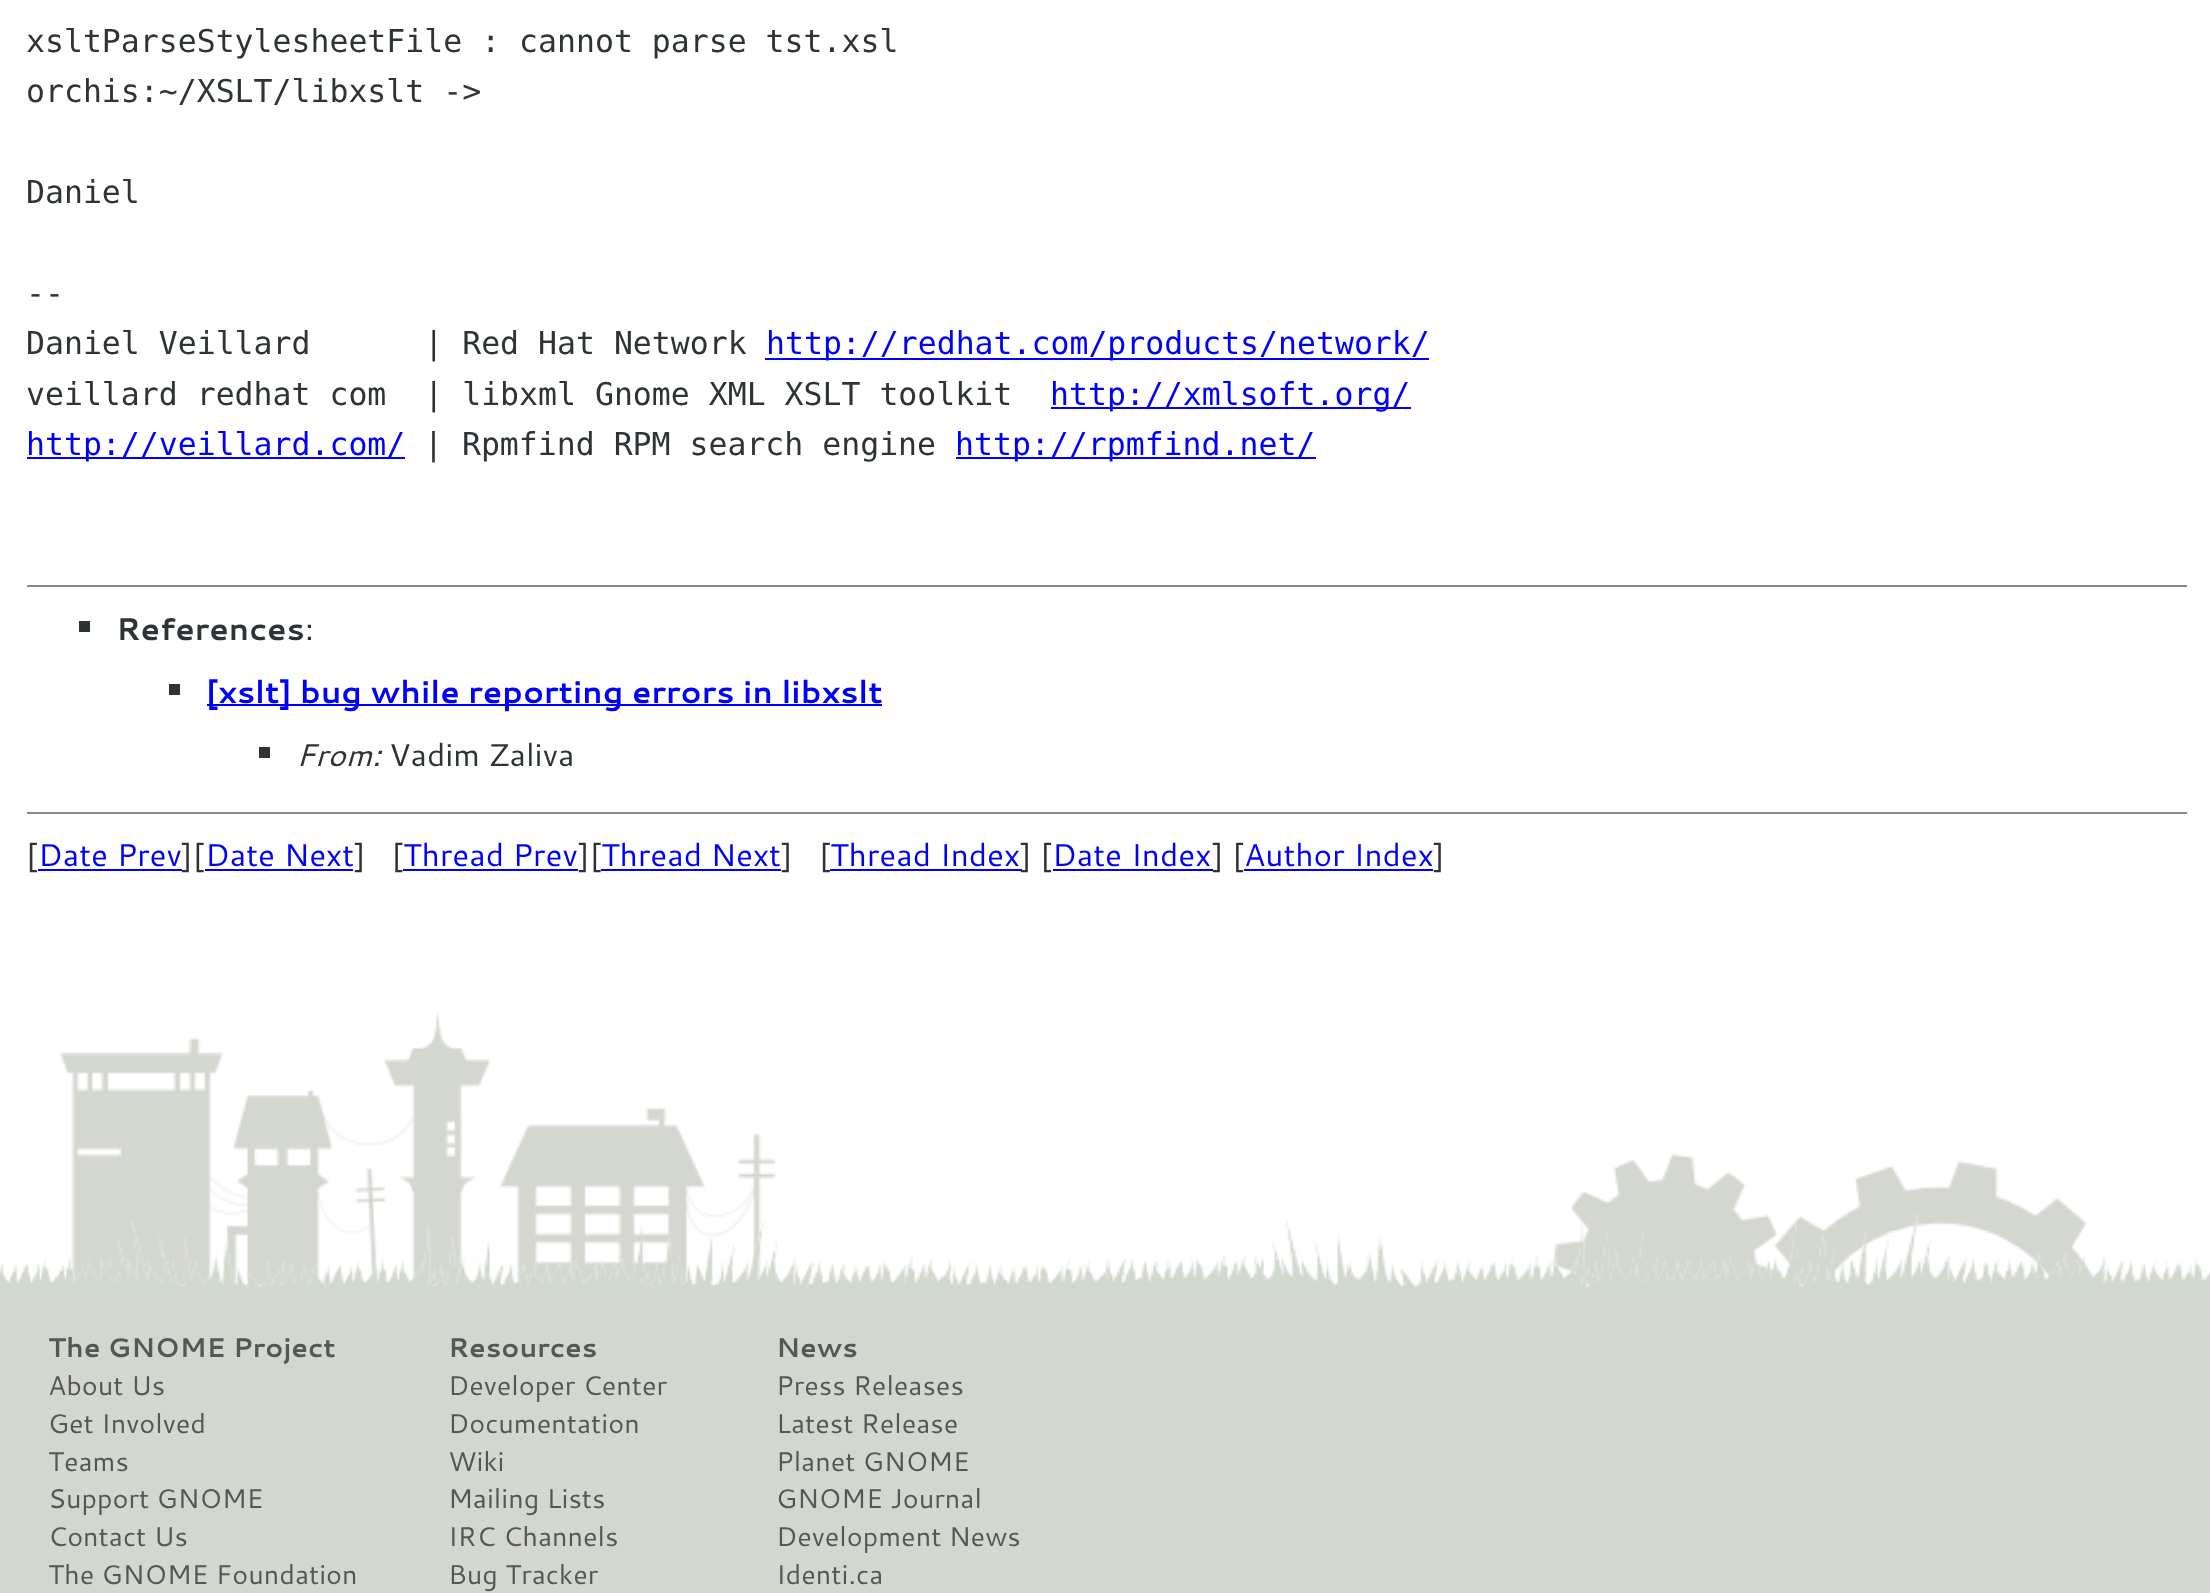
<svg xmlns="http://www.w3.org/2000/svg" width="2210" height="1593">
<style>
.a{font:31.5px DejaVu Sans Mono;fill:#2e3436}
.b{font:31.5px DejaVu Sans Mono;fill:#00f}
.c{font:bold 31.5px Cantarell;fill:#2e3436}
.d{font:31.5px Cantarell;fill:#2e3436}
.e{font:bold 31.5px Cantarell;fill:#00f}
.f{font:italic 31.5px Cantarell;fill:#2e3436}
.g{font:31.5px Cantarell;fill:#00f}
.h{font:bold 27px Cantarell;fill:#555753}
.i{font:27px Cantarell;fill:#555753}
</style>
<rect width="100%" height="100%" fill="#fff"/>
<path fill="#00f" d="M765 358h664v2H765z"/>
<path fill="#00f" d="M1051 407h360v2H1051z"/>
<path fill="#00f" d="M27 457h378v2H27z"/>
<path fill="#00f" d="M956 457h360v2H956z"/>
<path fill="#888" d="M27 585h2160v2H27z"/>
<path fill="#2e3436" d="M79 621h11v11H79z"/>
<path fill="#2e3436" d="M169 684h11v11H169z"/>
<path fill="#00f" d="M207 704h675v2H207z"/>
<path fill="#2e3436" d="M259 747h11v11H259z"/>
<path fill="#888" d="M27 812h2160v2H27z"/>
<path fill="#00f" d="M38 869h144v2H38z"/>
<path fill="#00f" d="M205 869h148v2H205z"/>
<path fill="#00f" d="M403 869h175v2H403z"/>
<path fill="#00f" d="M601 869h180v2H601z"/>
<path fill="#00f" d="M830 869h192v2H830z"/>
<path fill="#00f" d="M1053 869h160v2H1053z"/>
<path fill="#00f" d="M1244 869h189v2H1244z"/>
<image href="1.png" x="60" y="1012" width="2066" height="273"/>
<image href="2.png" x="0" y="1213" width="2210" height="85"/>
<path fill="#d3d7cf" d="M0 1298h2210v295H0z"/>
<text class="a" x="26" y="52">xsltParseStylesheetFile : cannot parse tst.xsl</text>
<text class="a" x="26" y="102">orchis:~/XSLT/libxslt -&gt;</text>
<text class="a" x="26" y="203">Daniel</text>
<text class="a" x="26" y="304">--</text>
<text class="a" xml:space="preserve" x="26" y="354">Daniel Veillard      | Red Hat Network</text>
<text class="b" x="766" y="354">http://redhat.com/products/network/</text>
<text class="a" xml:space="preserve" x="26" y="405">veillard redhat com  | libxml Gnome XML XSLT toolkit</text>
<text class="b" x="1050" y="405">http://xmlsoft.org/</text>
<text class="b" x="26" y="455">http://veillard.com/</text>
<text class="a" x="424" y="455">| Rpmfind RPM search engine</text>
<text class="b" x="955" y="455">http://rpmfind.net/</text>
<text class="c" x="116" y="640">References</text>
<text class="d" x="305" y="640">:</text>
<text class="e" x="206" y="703">[xslt] bug while reporting errors in libxslt</text>
<text class="f" x="296" y="766">From:</text>
<text class="d" x="389" y="766">Vadim Zaliva</text>
<text class="d" x="26" y="866">[</text>
<text class="g" x="38" y="866">Date Prev</text>
<text class="d" x="181" y="866">][</text>
<text class="g" x="205" y="866">Date Next</text>
<text class="d" xml:space="preserve" x="354" y="866">]   [</text>
<text class="g" x="403" y="866">Thread Prev</text>
<text class="d" x="578" y="866">][</text>
<text class="g" x="601" y="866">Thread Next</text>
<text class="d" x="781" y="866">]</text>
<text class="d" x="819" y="866">[</text>
<text class="g" x="830" y="866">Thread Index</text>
<text class="d" x="1020" y="866">] [</text>
<text class="g" x="1052" y="866">Date Index</text>
<text class="d" x="1212" y="866">] [</text>
<text class="g" x="1244" y="866">Author Index</text>
<text class="d" x="1433" y="866">]</text>
<text class="h" x="48" y="1357">The GNOME Project</text>
<text class="i" x="48" y="1395">About Us</text>
<text class="i" x="48" y="1433">Get Involved</text>
<text class="i" x="48" y="1471">Teams</text>
<text class="i" x="48" y="1508">Support GNOME</text>
<text class="i" x="48" y="1546">Contact Us</text>
<text class="i" x="48" y="1584">The GNOME Foundation</text>
<text class="h" x="448" y="1357">Resources</text>
<text class="i" x="448" y="1395">Developer Center</text>
<text class="i" x="448" y="1433">Documentation</text>
<text class="i" x="448" y="1471">Wiki</text>
<text class="i" x="448" y="1508">Mailing Lists</text>
<text class="i" x="448" y="1546">IRC Channels</text>
<text class="i" x="448" y="1584">Bug Tracker</text>
<text class="h" x="776" y="1357">News</text>
<text class="i" x="776" y="1395">Press Releases</text>
<text class="i" x="776" y="1433">Latest Release</text>
<text class="i" x="776" y="1471">Planet GNOME</text>
<text class="i" x="776" y="1508">GNOME Journal</text>
<text class="i" x="776" y="1546">Development News</text>
<text class="i" x="776" y="1584">Identi.ca</text>
</svg>
